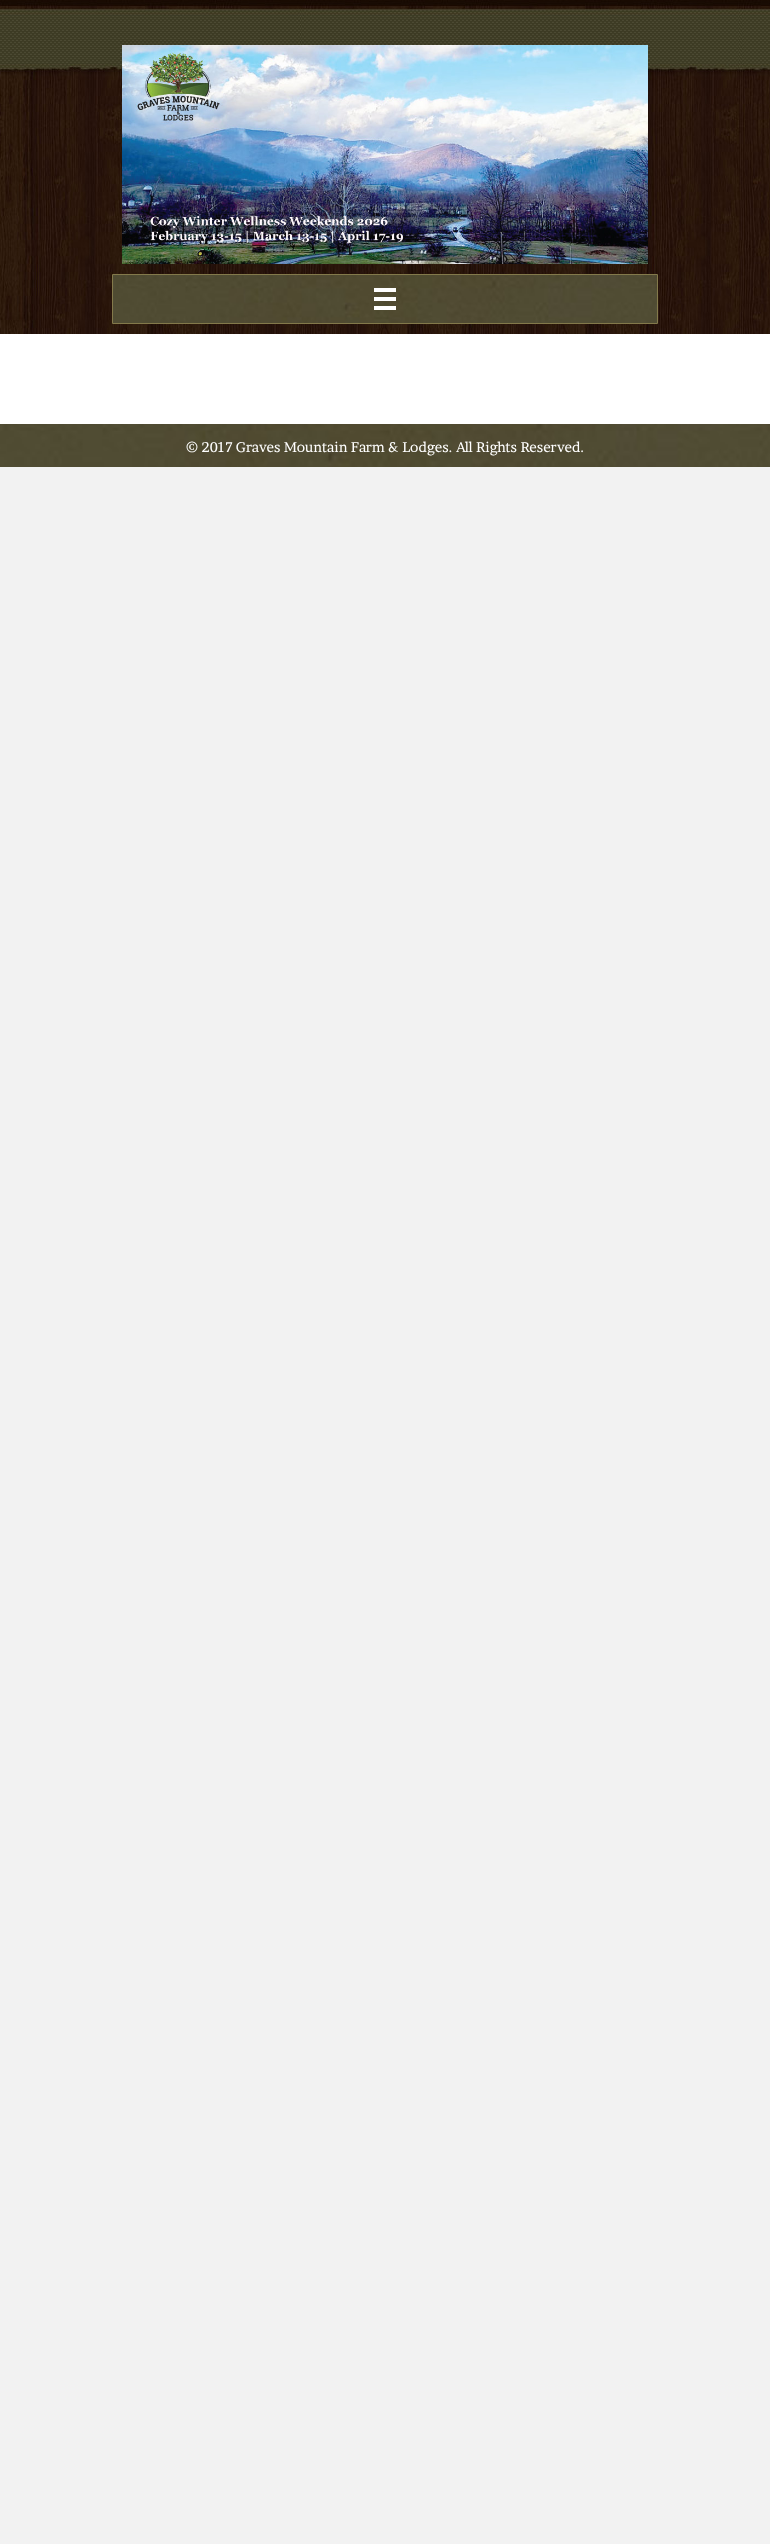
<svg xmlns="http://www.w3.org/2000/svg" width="770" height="2544">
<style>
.a{font:14px Brawler;fill:#fff}
</style>
<rect width="100%" height="100%" fill="#f2f2f2"/>
<image href="1.png" x="0" y="0" width="770" height="334"/>
<image href="2.png" x="122" y="45" width="526" height="219"/>
<image href="3.png" x="113" y="275" width="544" height="48"/>
<path fill="none" stroke="#83794b" d="M112.5 274.5h545v49H112.5z"/>
<path fill="#fff" d="M374 288h22v4H374z"/>
<path fill="#fff" d="M374 297h22v4H374z"/>
<path fill="#fff" d="M374 306h22v4H374z"/>
<path fill="#fff" d="M0 334h770v90H0z"/>
<image href="4.png" x="0" y="424" width="770" height="43"/>
<text class="a" x="186" y="452">© 2017 Graves Mountain Farm &amp; Lodges. All Rights Reserved.</text>
</svg>
